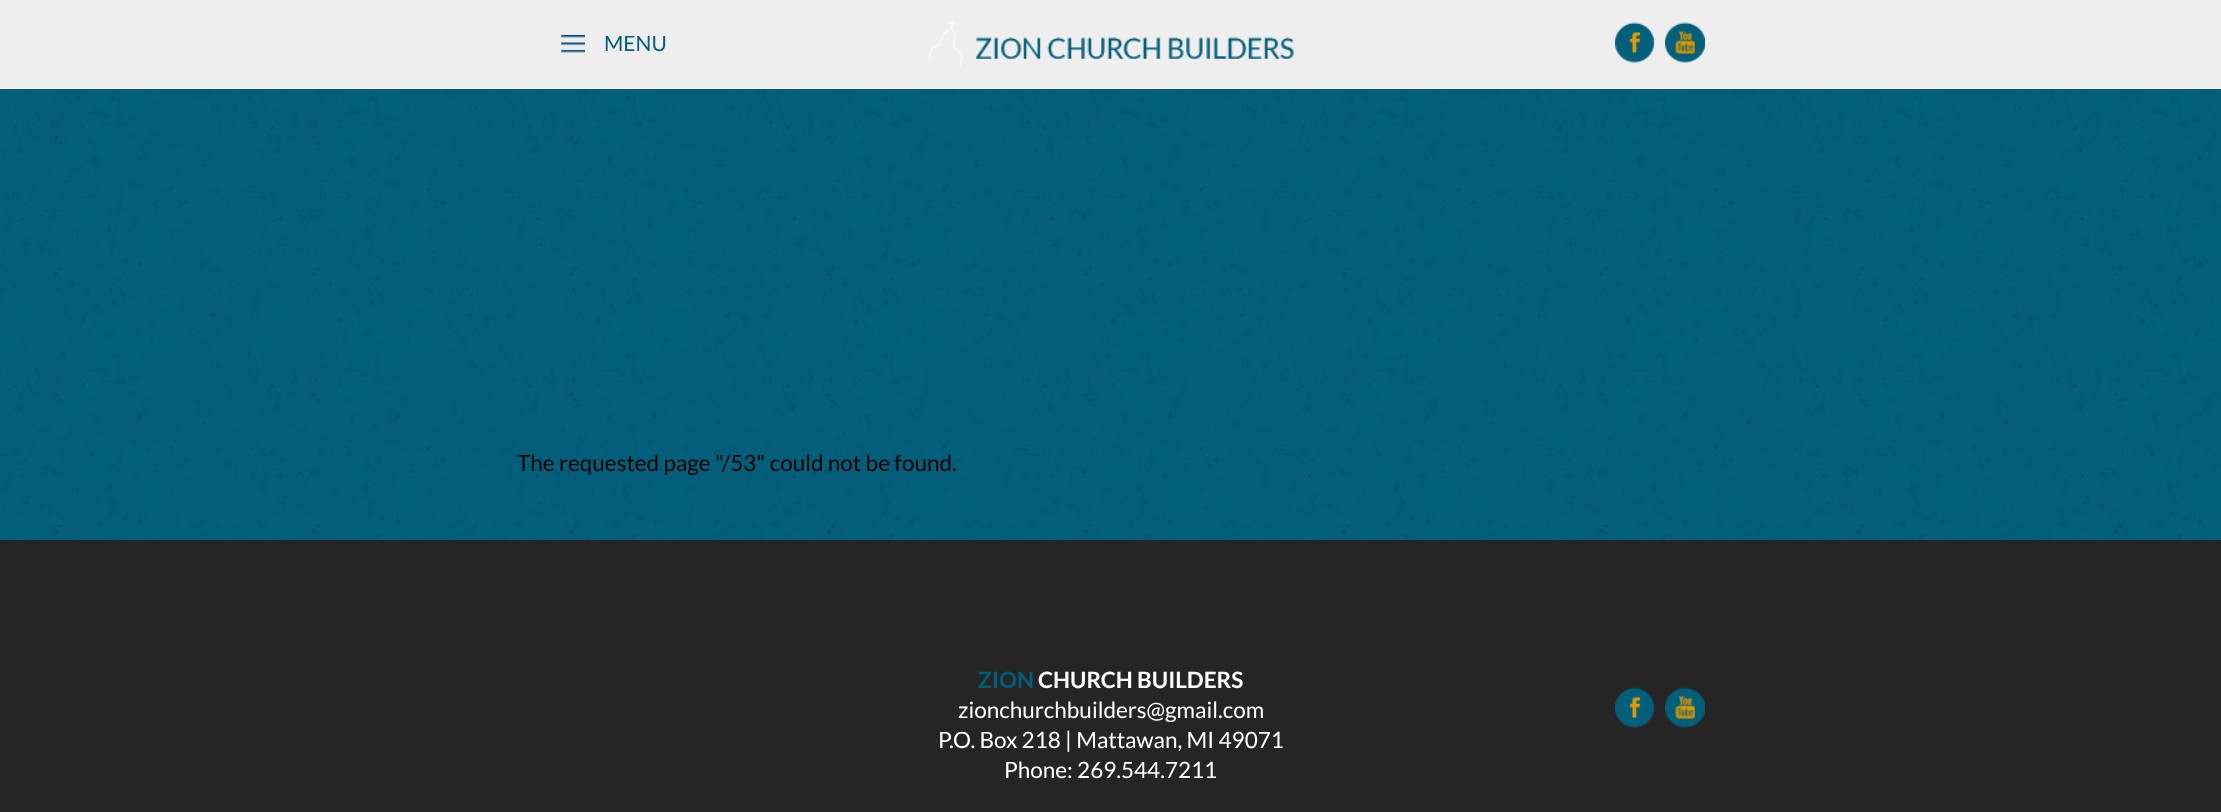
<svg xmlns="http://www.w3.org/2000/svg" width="2221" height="812">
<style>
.a{font:21px Lato;fill:#045e79}
.b{font:22.5px Lato;fill:#000}
.c{font:bold 22.5px Lato;fill:#045e79}
.d{font:bold 22.5px Lato;fill:#fff}
.e{font:22.5px Lato;fill:#fff}
</style>
<rect width="100%" height="100%" fill="#fff"/>
<image href="1.png" x="0" y="89" width="2221" height="451"/>
<path fill="#eee" d="M0 0h2221v88H0z"/>
<image href="2.png" x="561" y="35" width="24" height="18"/>
<image href="3.png" x="929" y="19" width="365" height="47"/>
<image href="4.png" x="1615" y="22" width="40" height="41"/>
<image href="5.png" x="1665" y="22" width="40" height="41"/>
<path fill="#252525" d="M0 540h2221v272H0z"/>
<image href="6.png" x="1615" y="687" width="40" height="41"/>
<image href="7.png" x="1665" y="687" width="40" height="41"/>
<text class="a" x="604" y="51">MENU</text>
<text class="b" x="517" y="471">The requested page "/53" could not be found.</text>
<text class="c" x="978" y="688">ZION</text>
<text class="d" x="1038" y="688">CHURCH BUILDERS</text>
<text class="e" x="958" y="718">zionchurchbuilders@gmail.com</text>
<text class="e" x="938" y="748">P.O. Box 218 | Mattawan, MI 49071</text>
<text class="e" x="1004" y="778">Phone: 269.544.7211</text>
</svg>
